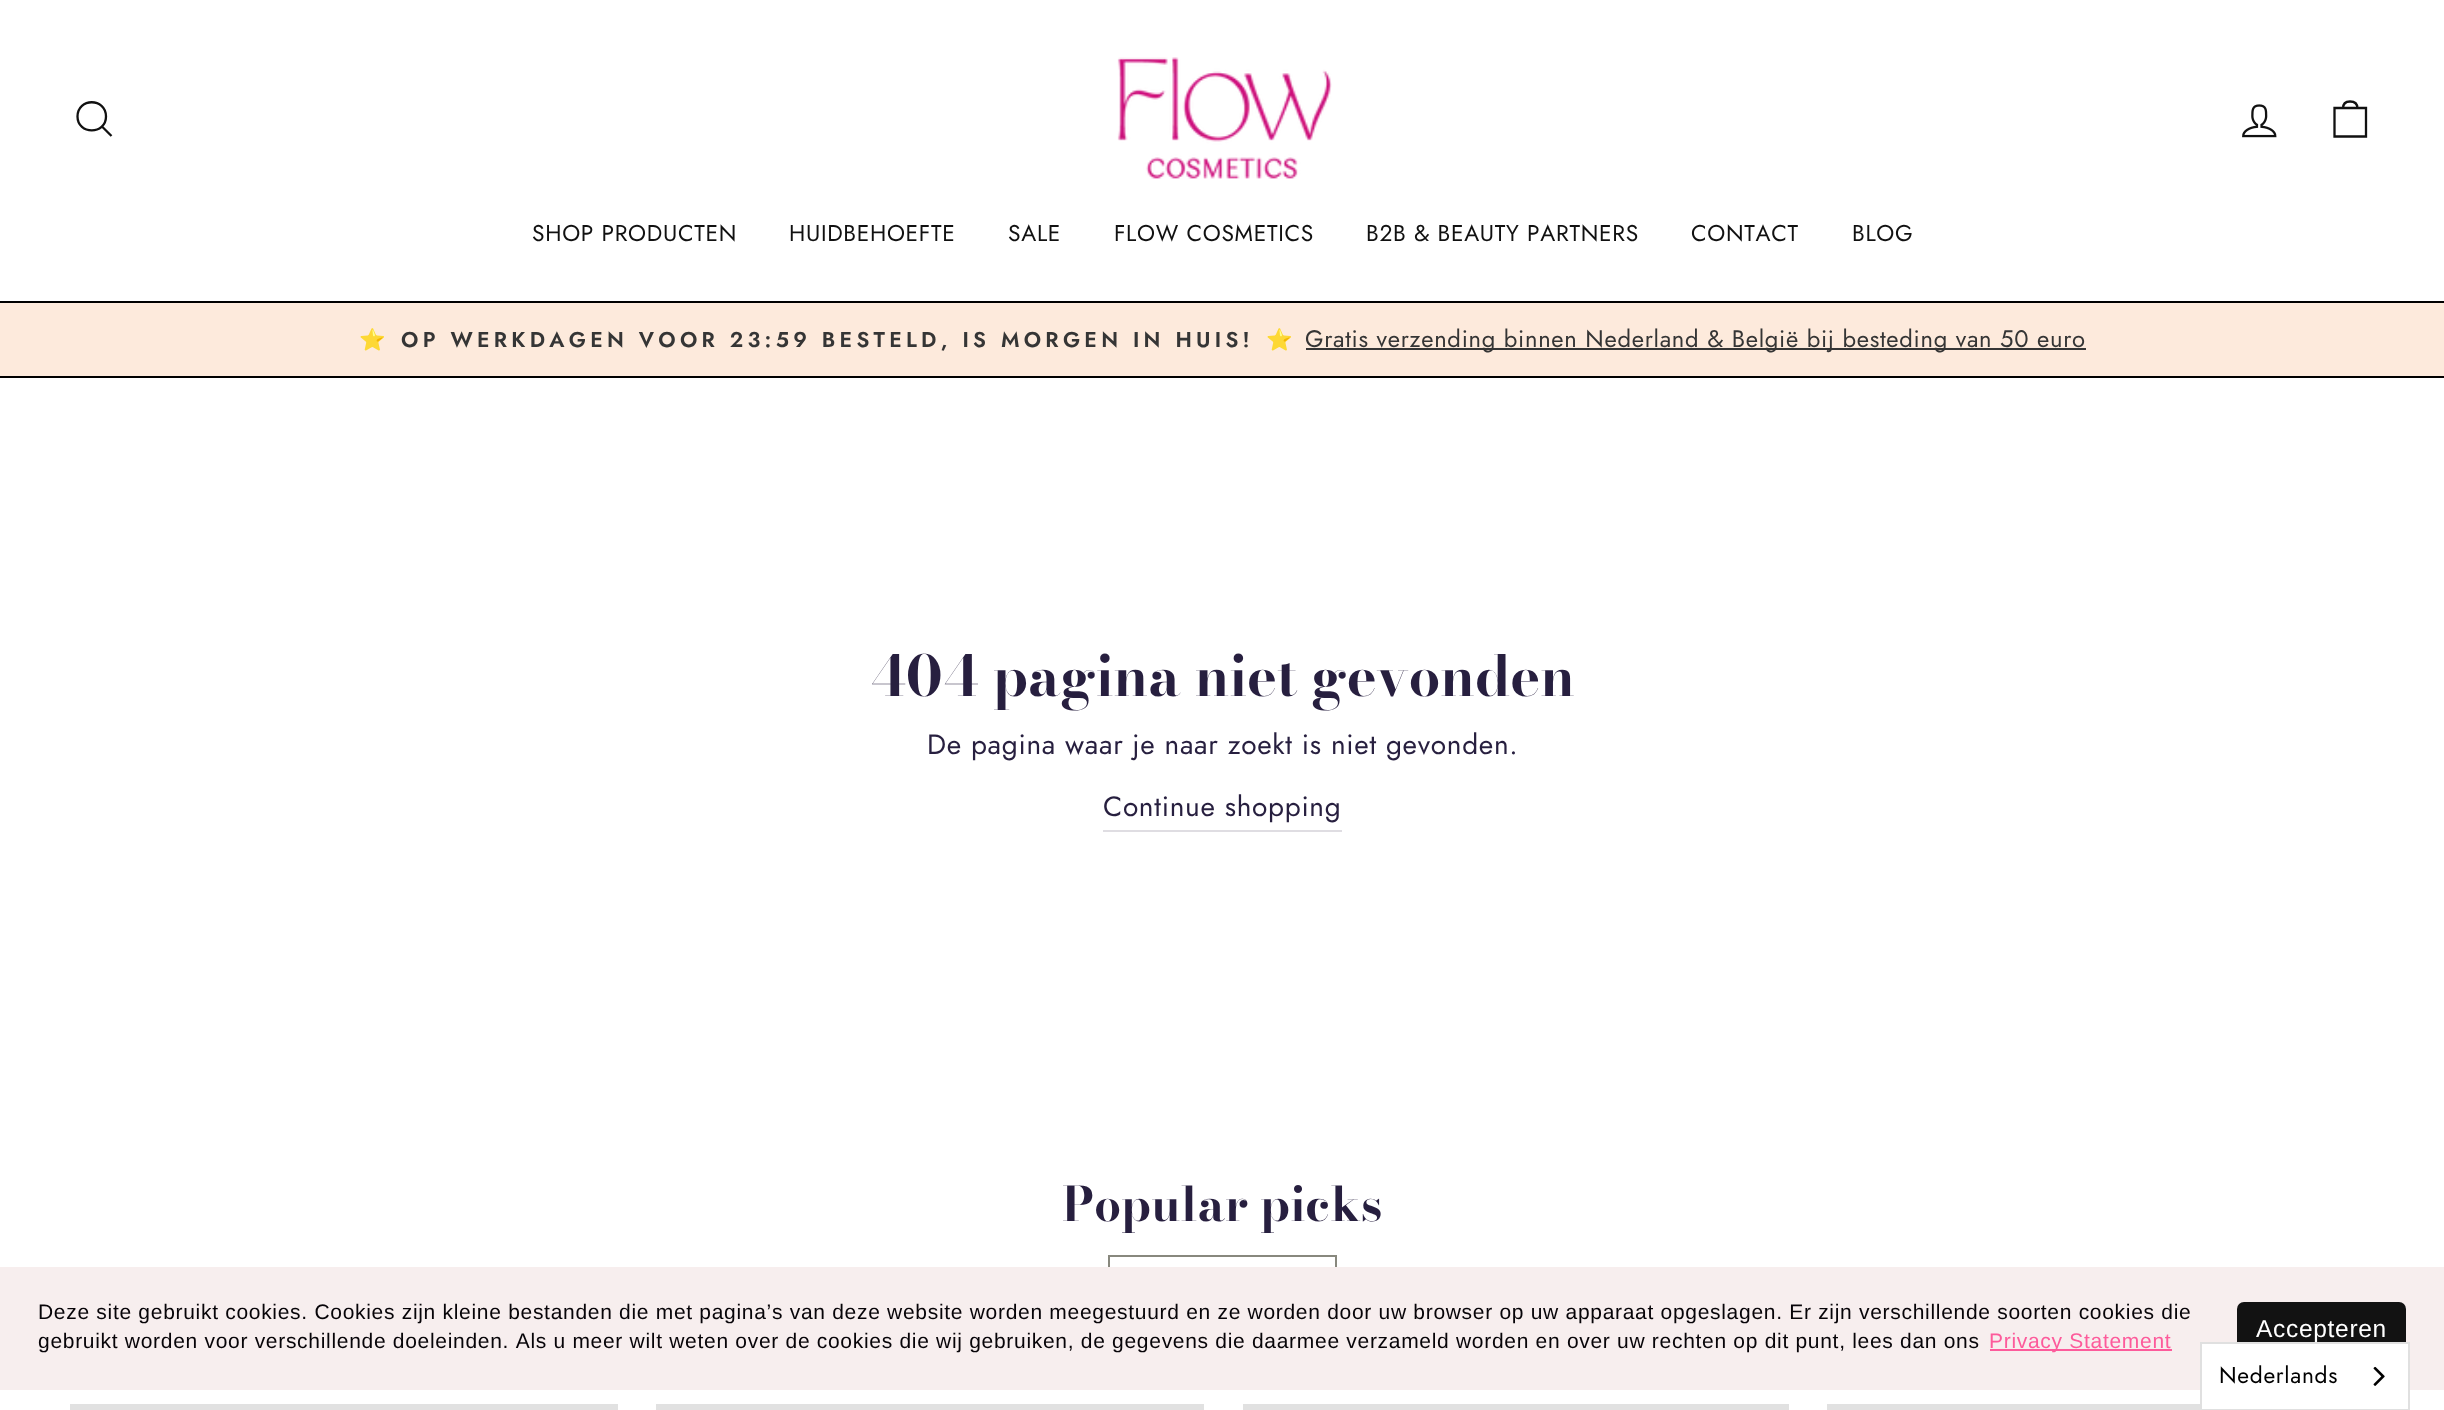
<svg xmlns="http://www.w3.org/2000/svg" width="2444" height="1410">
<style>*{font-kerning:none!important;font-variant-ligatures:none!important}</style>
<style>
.a{font:22.75px Jost;letter-spacing:0.7px;fill:#111}
.b{font:bold 21.4px Noto Color Emoji;letter-spacing:4.28px;fill:#353535}
.c{font:600 21.4px Jost;letter-spacing:4.28px;fill:#353535}
.d{font:23.8px Jost;letter-spacing:0.7px;fill:#353535}
.e{font:bold 56px Bodoni Moda;fill:#271f3f}
.f{font:28px Jost;letter-spacing:0.7px;fill:#271f3f}
.g{font:bold 47.5px 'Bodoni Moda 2';fill:#271f3f}
.h{font:21px Liberation Sans;letter-spacing:0.7px;fill:#070408}
.i{font:21px Liberation Sans;letter-spacing:0.7px;fill:#fd5b9b}
.j{font:24.5px Liberation Sans;letter-spacing:0.7px;fill:#fff}
.k{font:22.75px Jost;letter-spacing:0.7px;fill:#000}
</style>
<rect width="100%" height="100%" fill="#fff"/>
<path fill="none" stroke="#111" stroke-width="2.3" d="M106 116.5c0 18.5-28.5 18.5-28.5 0c0-19 28.5-19 28.5 0zm5.5 19.5l-9.5-9.5"/>
<image href="1.png" x="1117" y="57" width="215" height="122"/>
<image href="2.png" x="2242" y="104" width="35" height="34"/>
<path fill="none" stroke="#111" stroke-width="2.3" d="M2334.5 108h31.5v28.5h-31.5zm8.5 .5c0-5.5 3-7 7-7c4.5 0 7.5 1.5 7.5 7"/>
<path fill="#fdeadc" d="M0 303h2444v73H0z"/>
<path fill="#000" d="M0 301h2444v2H0z"/>
<path fill="#000" d="M0 376h2444v2H0z"/>
<path fill="#353535" d="M1306 348h780v2H1306z"/>
<path fill="#dfdde2" d="M1103 830h239v2H1103z"/>
<path fill="none" stroke="#88887e" stroke-width="2" d="M1109 1256h227v59H1109z"/>
<path fill="#e1e1e1" d="M70 1404h548v6H70z"/>
<path fill="#e1e1e1" d="M656 1404h548v6H656z"/>
<path fill="#e1e1e1" d="M1243 1404h546v6H1243z"/>
<path fill="#e1e1e1" d="M1827 1404h373v6H1827z"/>
<path fill="#f7eeee" d="M0 1267h2444v123H0z"/>
<path fill="#fd5b9b" d="M1990 1349h182v2H1990z"/>
<rect fill="#121212" x="2237" y="1302" width="169" height="53" rx="7"/>
<path fill="#fff" d="M2202 1344h206v46H2202z"/>
<text class="a" x="532" y="241">SHOP PRODUCTEN</text>
<text class="a" x="789" y="241">HUIDBEHOEFTE</text>
<text class="a" x="1008" y="241">SALE</text>
<text class="a" x="1114" y="241">FLOW COSMETICS</text>
<text class="a" x="1366" y="241">B2B &amp; BEAUTY PARTNERS</text>
<text class="a" x="1691" y="241">CONTACT</text>
<text class="a" x="1852" y="241">BLOG</text>
<text class="b" x="359" y="347">⭐</text>
<text class="c" x="401" y="347">OP WERKDAGEN VOOR 23:59 BESTELD, IS MORGEN IN HUIS!</text>
<text class="b" x="1266" y="347">⭐</text>
<text class="d" x="1305" y="347">Gratis verzending binnen Nederland &amp; België bij besteding van 50 euro</text>
<text class="e" x="870" y="696">404 pagina niet gevonden</text>
<text class="f" x="927" y="754">De pagina waar je naar zoekt is niet gevonden.</text>
<text class="f" x="1103" y="816">Continue shopping</text>
<text class="g" x="1062" y="1221">Popular picks</text>
<text class="h" x="38" y="1319">Deze site gebruikt cookies. Cookies zijn kleine bestanden die met pagina’s van deze website worden meegestuurd en ze worden door uw browser op uw apparaat opgeslagen. Er zijn verschillende soorten cookies die</text>
<text class="h" x="38" y="1348">gebruikt worden voor verschillende doeleinden. Als u meer wilt weten over de cookies die wij gebruiken, de gegevens die daarmee verzameld worden en over uw rechten op dit punt, lees dan ons</text>
<text class="i" x="1989" y="1348">Privacy Statement</text>
<text class="j" x="2256" y="1337">Accepteren</text>
<path fill="none" stroke="#e0e0e0" stroke-width="2" d="M2201 1343h208v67H2201z"/>
<text class="k" x="2219" y="1383">Nederlands</text>
<image href="3.png" x="2373" y="1366" width="12" height="20"/>
</svg>
